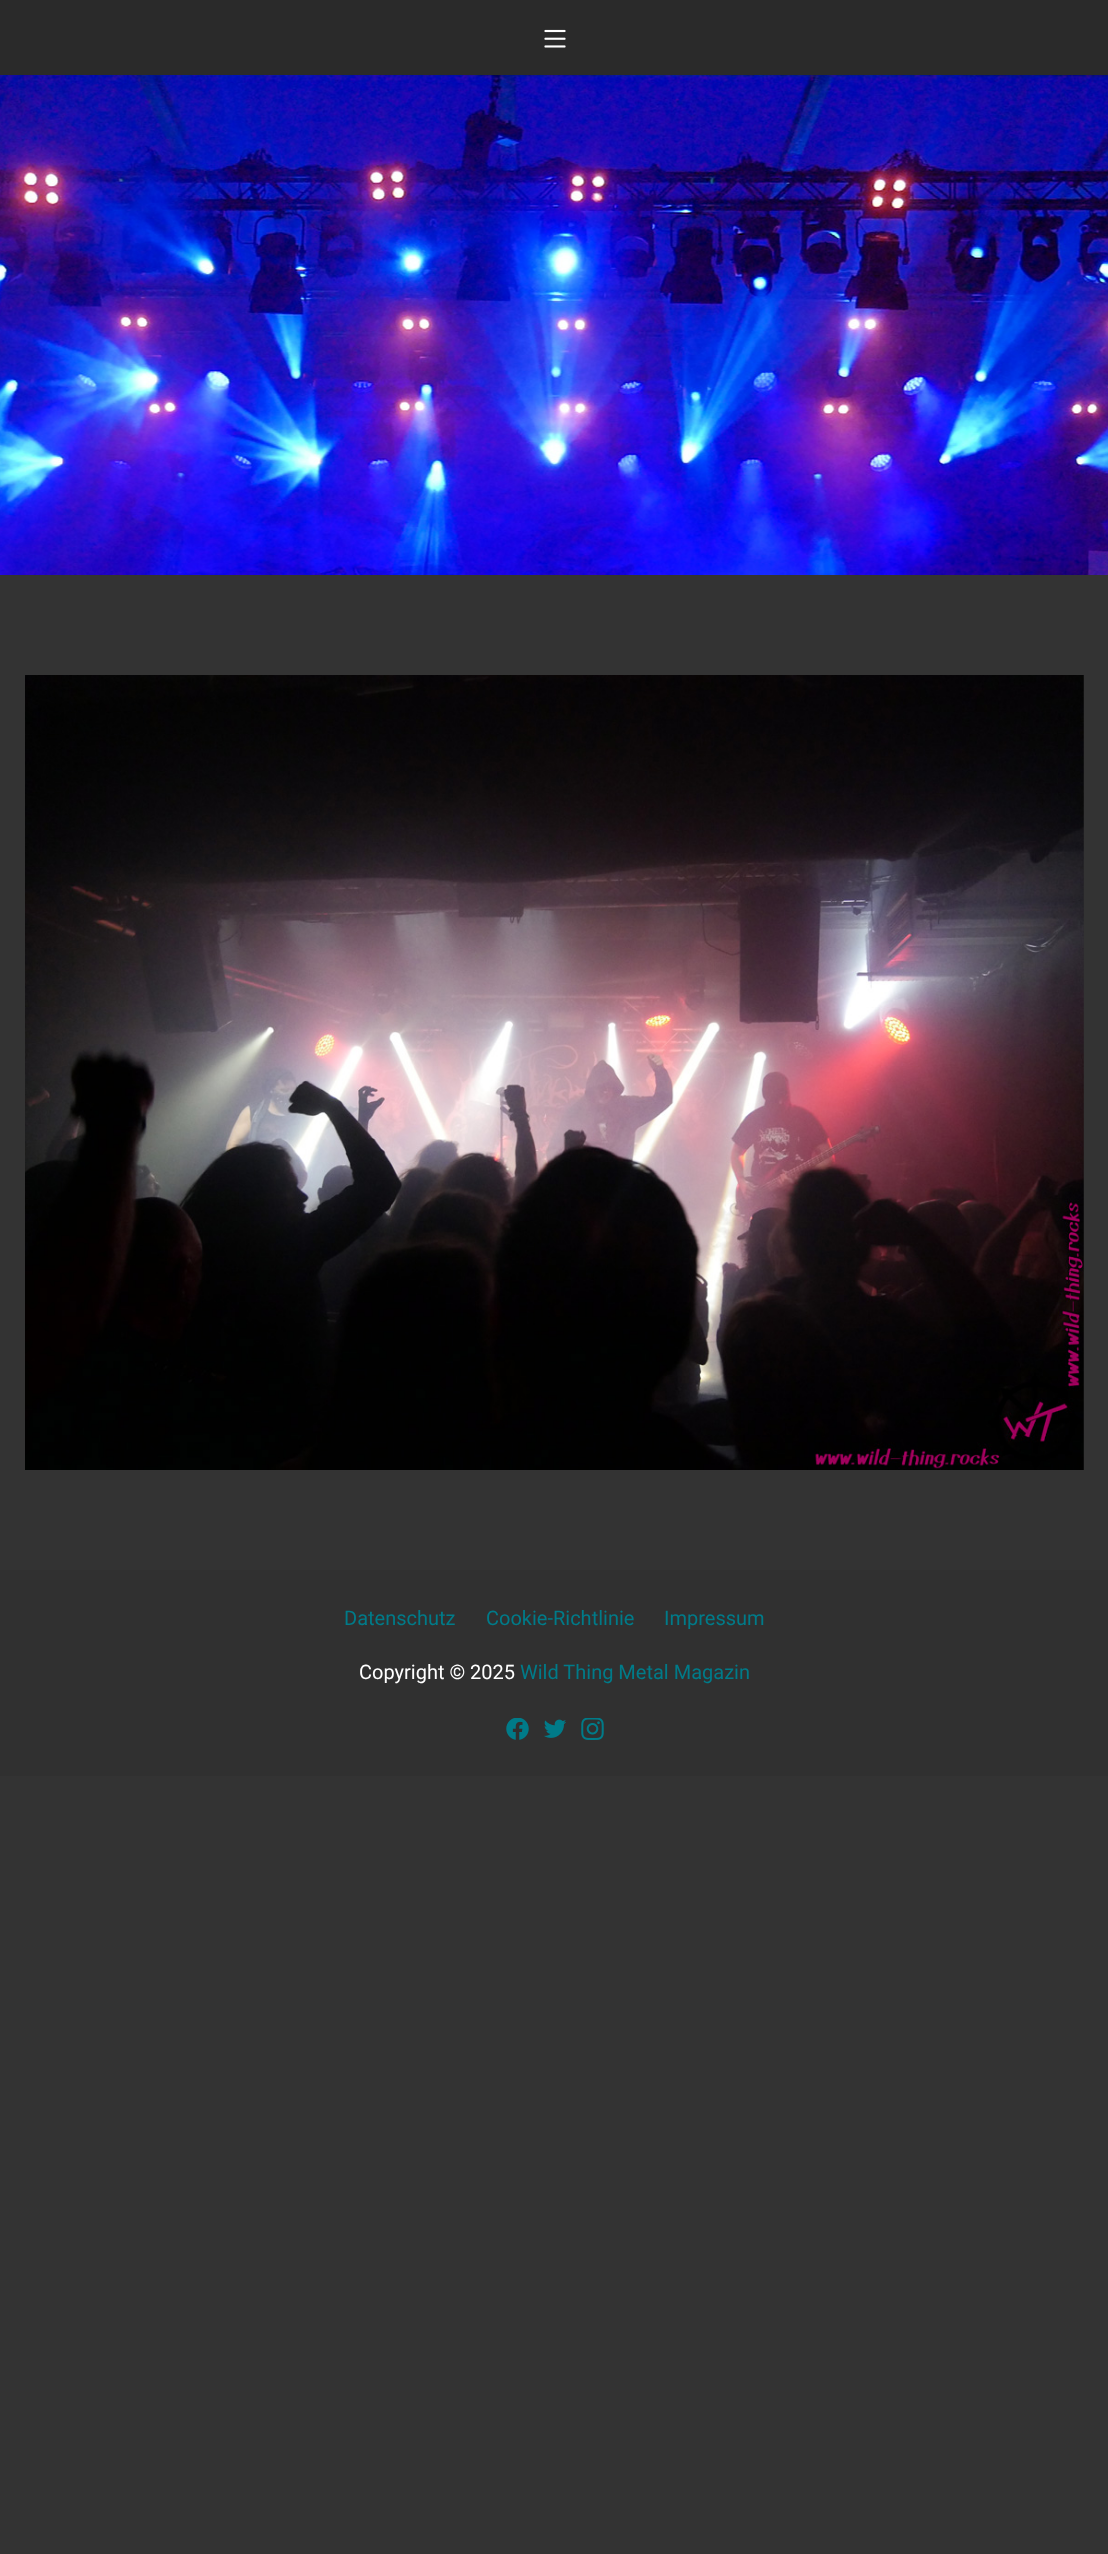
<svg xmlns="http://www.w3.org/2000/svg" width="1108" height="2554">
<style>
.a{font:20px Roboto;fill:#007b89}
.b{font:20px Roboto;fill:#fff}
</style>
<rect width="100%" height="100%" fill="#333"/>
<path fill="#2a2a2a" d="M0 0h1108v75H0z"/>
<image href="1.png" x="544" y="29" width="22" height="19"/>
<image href="2.png" x="0" y="75" width="1108" height="500"/>
<image href="3.png" x="25" y="675" width="1059" height="795"/>
<path fill="#303030" d="M0 1570h1108v206H0z"/>
<image href="4.png" x="506" y="1718" width="23" height="22"/>
<image href="5.png" x="544" y="1719" width="22" height="19"/>
<image href="6.png" x="581" y="1718" width="23" height="22"/>
<text class="a" x="344" y="1625">Datenschutz</text>
<text class="a" x="486" y="1625">Cookie-Richtlinie</text>
<text class="a" x="664" y="1625">Impressum</text>
<text class="b" x="359" y="1679">Copyright © 2025</text>
<text class="a" x="520" y="1679">Wild Thing Metal Magazin</text>
</svg>
